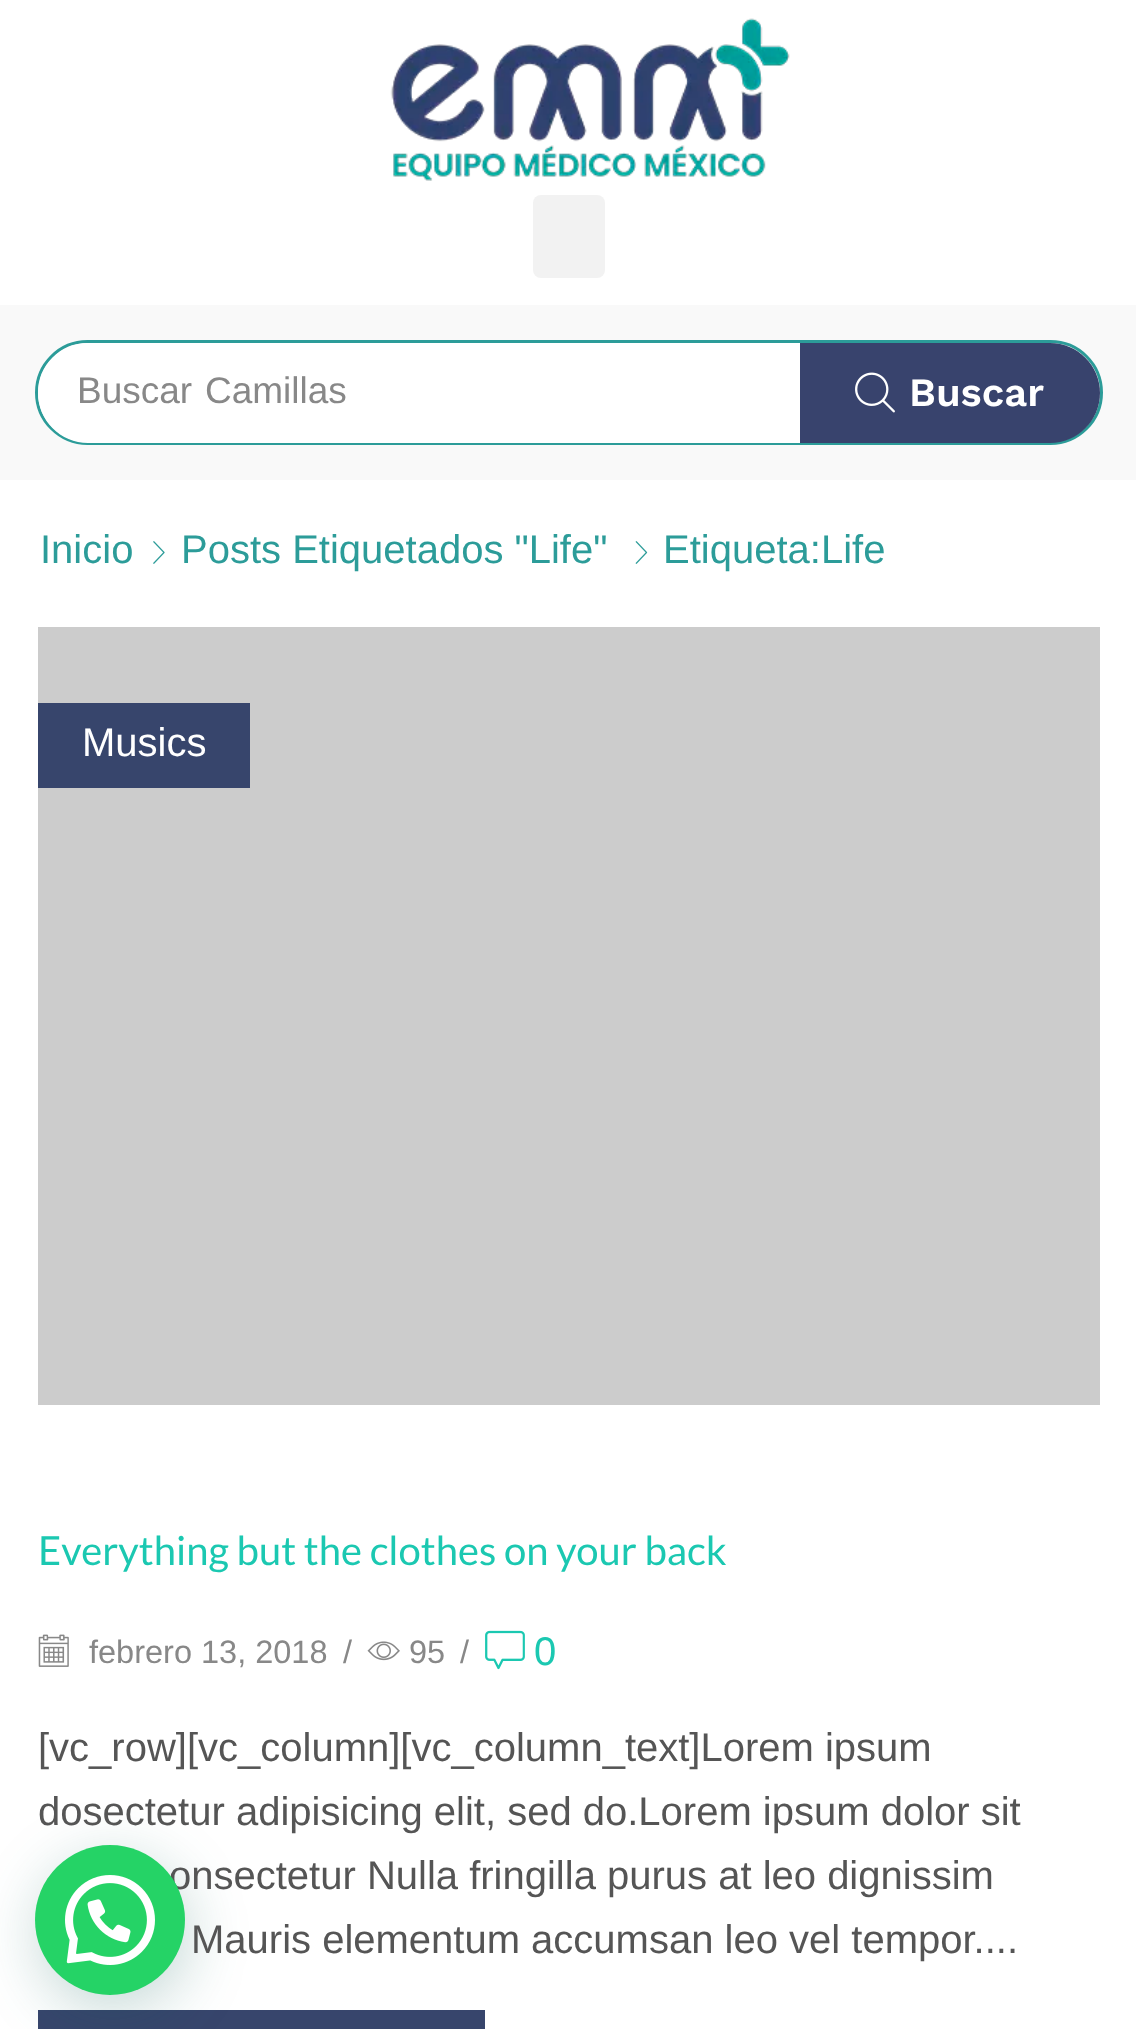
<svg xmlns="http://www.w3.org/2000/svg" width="1136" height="2029">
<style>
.a{font:37px Liberation Sans;fill:#888}
.b{font:600 40px Work Sans;fill:#fff}
.c{font:40px Liberation Sans;fill:#2c9c99}
.d{font:40px Liberation Sans;fill:#fff}
.e{font:40px Lato;fill:#1bc8b1}
.f{font:32.5px Liberation Sans;fill:#888}
.g{font:40px Liberation Sans;fill:#1bc8b1}
.h{font:40px Liberation Sans;fill:#555}
</style>
<rect width="100%" height="100%" fill="#fff"/>
<image href="1.png" x="390" y="18" width="400" height="163"/>
<rect fill="#f2f2f2" x="533" y="195" width="72" height="83" rx="8"/>
<path fill="#f9f9f9" d="M0 305h1136v175H0z"/>
<rect fill="none" stroke="#2c9c99" stroke-width="3" x="36.5" y="341.5" width="1065" height="102" rx="51"/>
<path fill="#fff" d="M88 343h712v100h-712c-27.5 0-50-22.5-50-50c0-27.5 22.5-50 50-50z"/>
<path fill="#38436d" d="M800 343h250c27.5 0 50 22.5 50 50c0 27.5-22.5 50-50 50h-250z"/>
<image href="2.png" x="855" y="372" width="40" height="41"/>
<image href="3.png" x="153" y="541" width="12" height="23"/>
<image href="4.png" x="635" y="541" width="13" height="23"/>
<path fill="#ccc" d="M38 627h1062v778H38z"/>
<path fill="#37456c" d="M38 703h212v85H38z"/>
<image href="5.png" x="38" y="1634" width="31" height="33"/>
<image href="6.png" x="367" y="1641" width="33" height="20"/>
<image href="7.png" x="485" y="1630" width="40" height="40"/>
<path fill="#37456c" d="M38 2010h447v19H38z"/>
<rect fill="#075e543d" filter="blur(30px)" x="38" y="1860" width="150" height="150" rx="75"/>
<text class="a" x="77" y="403">Buscar</text>
<text class="a" x="205" y="403">Camillas</text>
<text class="b" x="909" y="406">Buscar</text>
<text class="c" x="40" y="563">Inicio</text>
<text class="c" x="181" y="563">Posts Etiquetados "Life"</text>
<text class="c" x="663" y="563">Etiqueta:Life</text>
<text class="d" x="82" y="756">Musics</text>
<text class="e" x="38" y="1565">Everything but the clothes on your back</text>
<text class="f" x="89" y="1663">febrero 13, 2018</text>
<text class="f" x="343" y="1663">/</text>
<text class="f" x="409" y="1663">95</text>
<text class="f" x="460" y="1663">/</text>
<text class="g" x="534" y="1665">0</text>
<text class="h" x="38" y="1761">[vc_row][vc_column][vc_column_text]Lorem ipsum</text>
<text class="h" x="38" y="1825">dosectetur adipisicing elit, sed do.Lorem ipsum dolor sit</text>
<text class="h" x="169" y="1889">onsectetur Nulla fringilla purus at leo dignissim</text>
<text class="h" x="191" y="1953">Mauris elementum accumsan leo vel tempor....</text>
<circle fill="#25d366" cx="110" cy="1920" r="75"/>
<image href="8.png" x="65" y="1875" width="90" height="90"/>
</svg>
